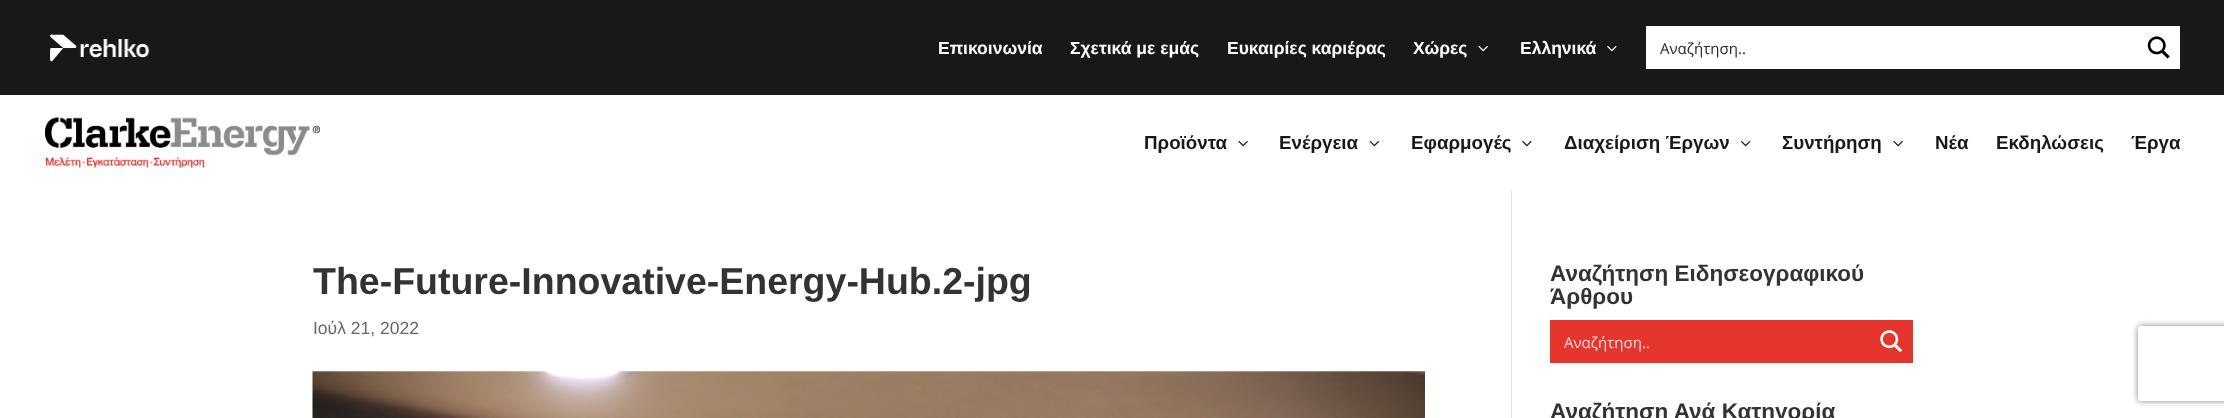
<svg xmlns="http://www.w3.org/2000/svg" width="2224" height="418">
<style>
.a{font:bold 17.5px Liberation Sans;fill:#fff}
.b{font:15px Open Sans;fill:#262626}
.c{font:15px 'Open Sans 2';fill:#262626}
.d{font:bold 18.75px Liberation Sans;fill:#1a171b}
.e{font:bold 37.5px Liberation Sans;fill:#333}
.f{font:17.5px Liberation Sans;fill:#666}
.g{font:bold 22.5px Liberation Sans;fill:#333}
.h{font:15px Open Sans;fill:#fbe1df}
.i{font:15px 'Open Sans 2';fill:#fbe1df}
</style>
<defs>
<clipPath id="clip1"><path d="M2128 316h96v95h-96zm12.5 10h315c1.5 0 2.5 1 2.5 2.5v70c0 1.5-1 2.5-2.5 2.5h-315c-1.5 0-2.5-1-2.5-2.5v-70c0-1.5 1-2.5 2.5-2.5z" clip-rule="evenodd"/></clipPath>
</defs>
<rect width="100%" height="100%" fill="#fff"/>
<path fill="#1a171b" d="M0 0h2224v95H0z"/>
<image href="1.png" x="50" y="34" width="100" height="28"/>
<image href="2.png" x="1478" y="46" width="10" height="6"/>
<image href="3.png" x="1607" y="46" width="10" height="6"/>
<path fill="#fff" d="M1646 26h534v43H1646z"/>
<image href="4.png" x="2147" y="36" width="23" height="23"/>
<image href="5.png" x="45" y="117" width="275" height="51"/>
<image href="6.png" x="1238" y="141" width="10" height="6"/>
<image href="7.png" x="1369" y="141" width="10" height="6"/>
<image href="8.png" x="1522" y="141" width="10" height="6"/>
<image href="9.png" x="1741" y="141" width="10" height="6"/>
<image href="6.png" x="1893" y="141" width="10" height="6"/>
<path fill="#e2e2e2" d="M1511 190h1v228H1511z"/>
<image href="10.png" x="312" y="371" width="1113" height="47"/>
<path fill="#e5352c" d="M1550 320h363v43H1550z"/>
<image href="11.png" x="1880" y="330" width="23" height="23"/>
<g clip-path="url(#clip1)">
<rect fill="#808080" filter="blur(3px)" x="2138" y="326" width="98" height="75" rx="2.5"/>
</g>
<text class="a" x="938" y="54">Επικοινωνία</text>
<text class="a" x="1070" y="54">Σχετικά με εμάς</text>
<text class="a" x="1227" y="54">Ευκαιρίες καριέρας</text>
<text class="a" x="1413" y="54">Χώρες</text>
<text class="a" x="1520" y="54">Ελληνικά</text>
<text class="b" x="1660" y="54">Αναζήτηση</text>
<text class="c" x="1738" y="54">..</text>
<text class="d" x="1144" y="149">Προϊόντα</text>
<text class="d" x="1279" y="149">Ενέργεια</text>
<text class="d" x="1411" y="149">Εφαρμογές</text>
<text class="d" x="1564" y="149">Διαχείριση Έργων</text>
<text class="d" x="1782" y="149">Συντήρηση</text>
<text class="d" x="1935" y="149">Νέα</text>
<text class="d" x="1996" y="149">Εκδηλώσεις</text>
<text class="d" x="2131" y="149">Έργα</text>
<text class="e" x="313" y="294">The-Future-Innovative-Energy-Hub.2-jpg</text>
<text class="f" x="313" y="334">Ιούλ 21, 2022</text>
<text class="g" x="1550" y="281">Αναζήτηση Ειδησεογραφικού</text>
<text class="g" x="1550" y="304">Άρθρου</text>
<text class="h" x="1564" y="348">Αναζήτηση</text>
<text class="i" x="1642" y="348">..</text>
<text class="g" x="1550" y="419">Αναζήτηση Ανά Κατηγορία</text>
</svg>
